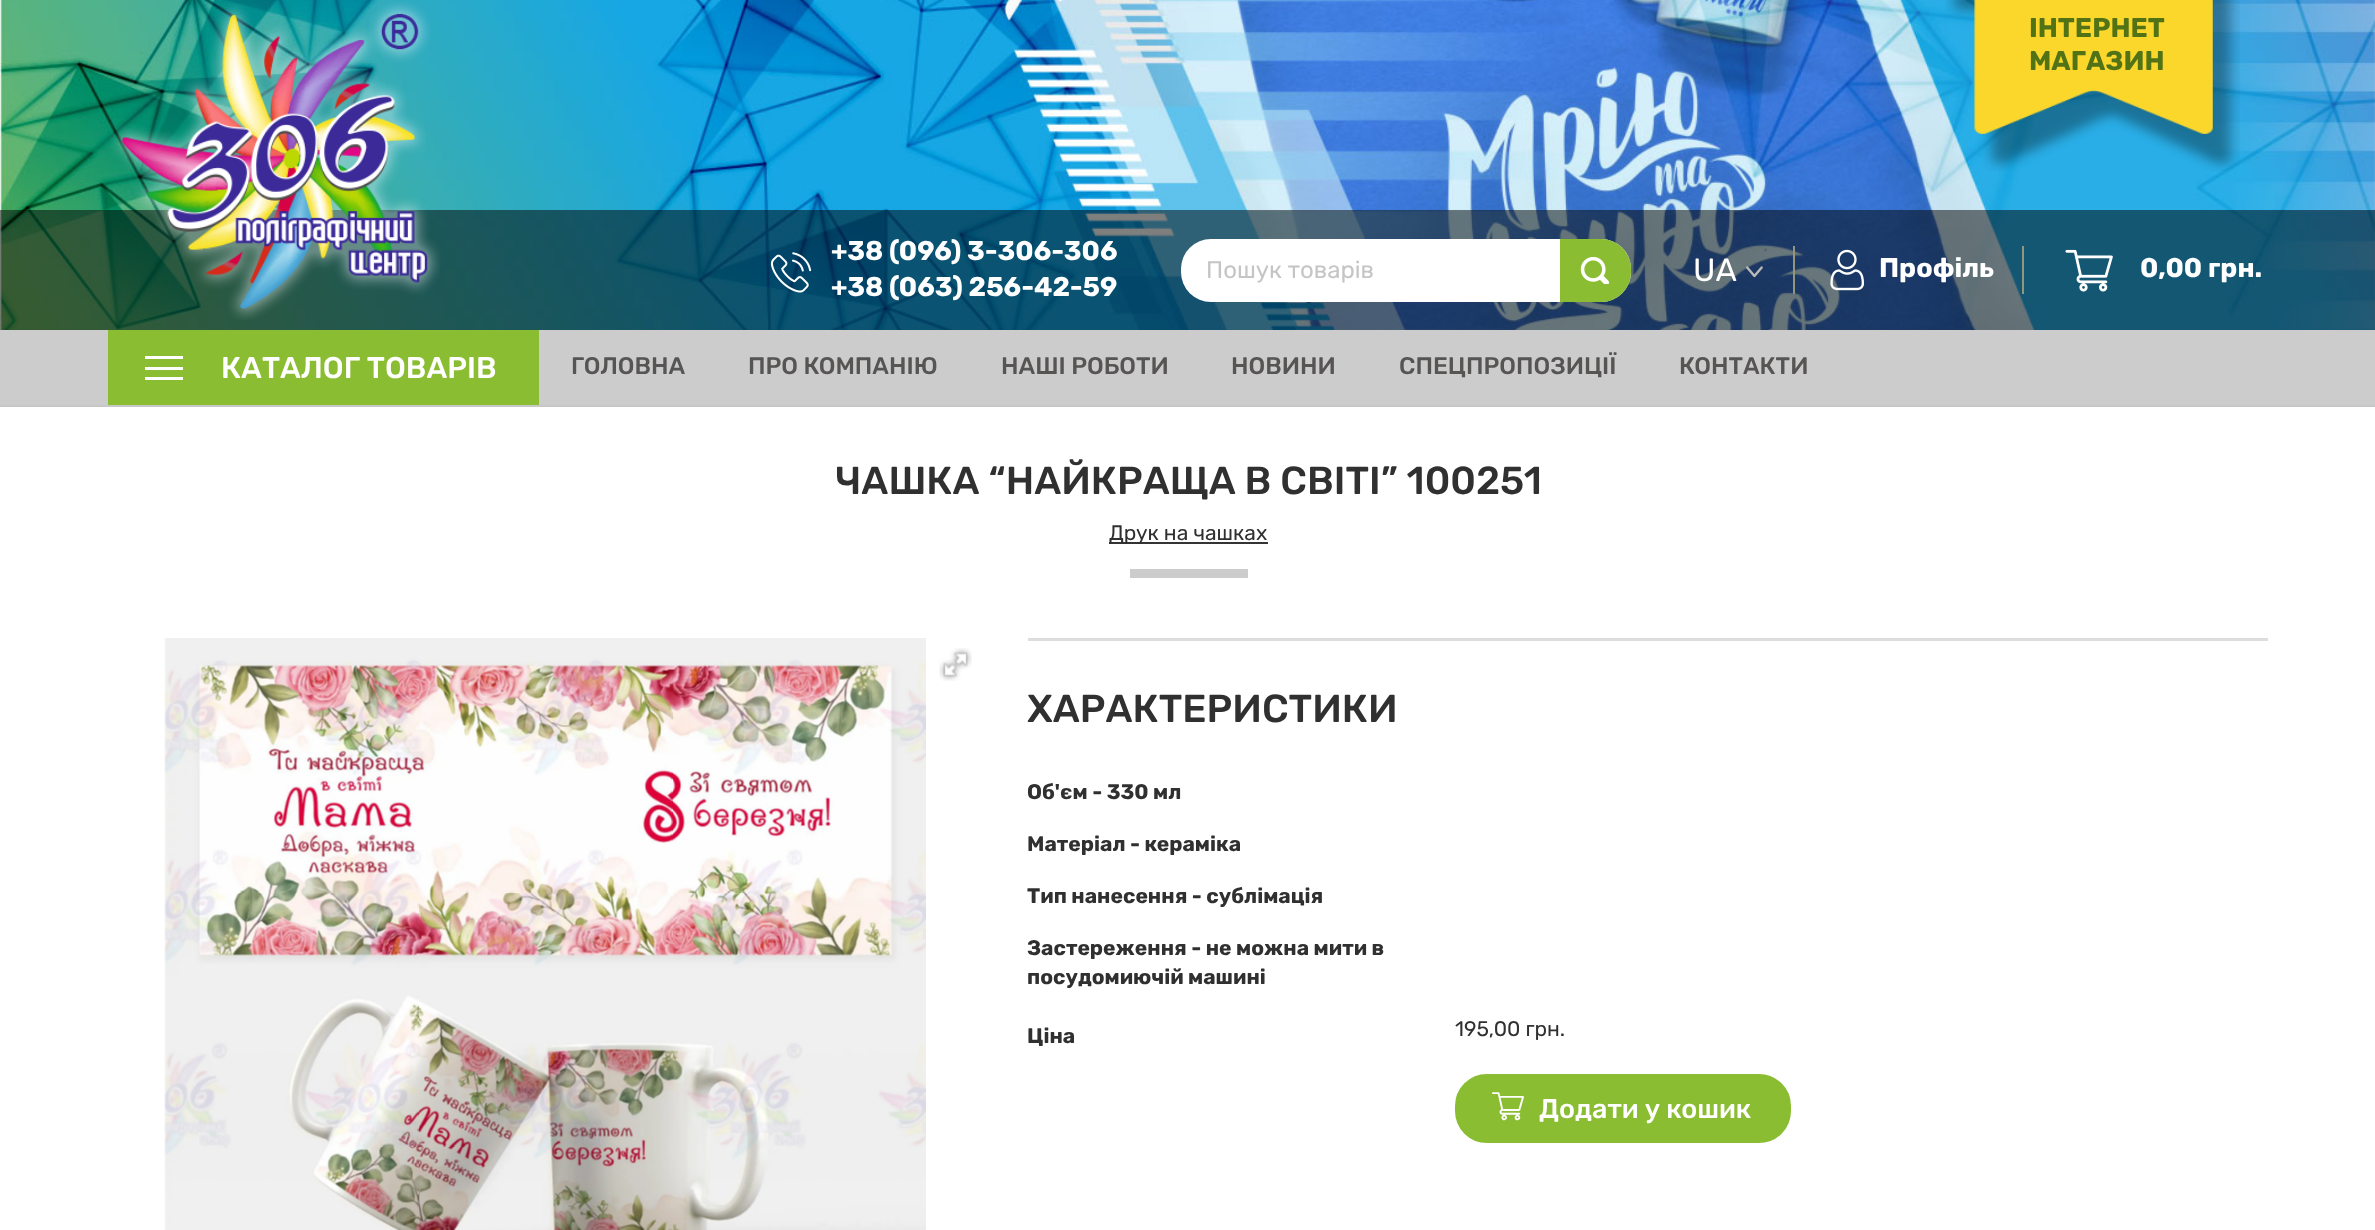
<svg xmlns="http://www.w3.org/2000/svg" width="2375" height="1230">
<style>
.a{font:bold 27px Rubik;fill:#517316}
.b{font:bold 27px Rubik;fill:#fff}
.c{font:24px Rubik;fill:#c5c5c5}
.d{font:32px Rubik;fill:#fff}
.e{font:500 30px Rubik;fill:#fff}
.f{font:500 24px Rubik;fill:#575454}
.g{font:500 39px Rubik;fill:#303030}
.h{font:21px Rubik;fill:#303030}
.i{font:bold 21px Rubik;fill:#303030}
.j{font:500 27px Rubik;fill:#fff}
</style>
<rect width="100%" height="100%" fill="#fff"/>
<path fill="#c7c7c7" d="M0 405h2375v2H0z"/>
<image href="1.png" x="0" y="0" width="2375" height="330"/>
<image href="2.png" x="1945" y="0" width="295" height="171"/>
<path fill="#00000080" d="M0 210h2375v120H0z"/>
<image href="3.png" x="110" y="1" width="330" height="319"/>
<image href="4.png" x="770" y="252" width="42" height="41"/>
<rect fill="#fff" x="1181" y="239" width="450" height="63" rx="30"/>
<path fill="#8abd31" d="M1560 239h41c16.5 0 30 13.5 30 30v3c0 16.5-13.5 30-30 30h-41z"/>
<image href="5.png" x="1580" y="257" width="30" height="27"/>
<image href="6.png" x="1746" y="266" width="17" height="12"/>
<path fill="#93967b" d="M1793 246h2v48H1793z"/>
<image href="7.png" x="1830" y="249" width="34" height="42"/>
<path fill="#93967b" d="M2022 246h2v48H2022z"/>
<image href="8.png" x="2065" y="249" width="48" height="43"/>
<path fill="#ccc" d="M0 330h2375v75H0z"/>
<path fill="#8abd31" d="M108 330h431v75H108z"/>
<path fill="#fff" d="M145 356h38v3H145z"/>
<path fill="#fff" d="M145 367h38v3H145z"/>
<path fill="#fff" d="M145 377h38v3H145z"/>
<path fill="#343434" d="M1109 542h159v2H1109z"/>
<path fill="#ccc" d="M1130 569h118v9H1130z"/>
<image href="9.png" x="164" y="638" width="762" height="592"/>
<image href="10.png" x="939" y="648" width="33" height="33"/>
<path fill="#ddd" d="M1028 638h1240v3H1028z"/>
<rect fill="#8abd31" stroke="#8abd31" stroke-width="2" x="1456" y="1075" width="334" height="67" rx="31"/>
<image href="11.png" x="1492" y="1092" width="32" height="29"/>
<text class="a" x="2029" y="37">ІНТЕРНЕТ</text>
<text class="a" x="2029" y="70">МАГАЗИН</text>
<text class="b" x="831" y="260">+38 (096) 3-306-306</text>
<text class="b" x="831" y="296">+38 (063) 256-42-59</text>
<text class="c" x="1206" y="278">Пошук товарів</text>
<text class="d" x="1693" y="281">UA</text>
<text class="b" x="1879" y="277">Профіль</text>
<text class="b" x="2140" y="277">0,00 грн.</text>
<text class="e" x="221" y="378">КАТАЛОГ ТОВАРІВ</text>
<text class="f" x="571" y="374">ГОЛОВНА</text>
<text class="f" x="748" y="374">ПРО КОМПАНІЮ</text>
<text class="f" x="1001" y="374">НАШІ РОБОТИ</text>
<text class="f" x="1231" y="374">НОВИНИ</text>
<text class="f" x="1399" y="374">СПЕЦПРОПОЗИЦІЇ</text>
<text class="f" x="1679" y="374">КОНТАКТИ</text>
<text class="g" x="835" y="494">ЧАШКА “НАЙКРАЩА В СВІТІ” 100251</text>
<text class="h" x="1109" y="540">Друк на чашках</text>
<text class="g" x="1027" y="722">ХАРАКТЕРИСТИКИ</text>
<text class="i" x="1027" y="799">Об'єм - 330 мл</text>
<text class="i" x="1027" y="851">Матеріал - кераміка</text>
<text class="i" x="1027" y="903">Тип нанесення - сублімація</text>
<text class="i" x="1027" y="955">Застереження - не можна мити в</text>
<text class="i" x="1027" y="984">посудомиючій машині</text>
<text class="i" x="1027" y="1043">Ціна</text>
<text class="h" x="1455" y="1036">195,00 грн.</text>
<text class="j" x="1539" y="1118">Додати у кошик</text>
</svg>
